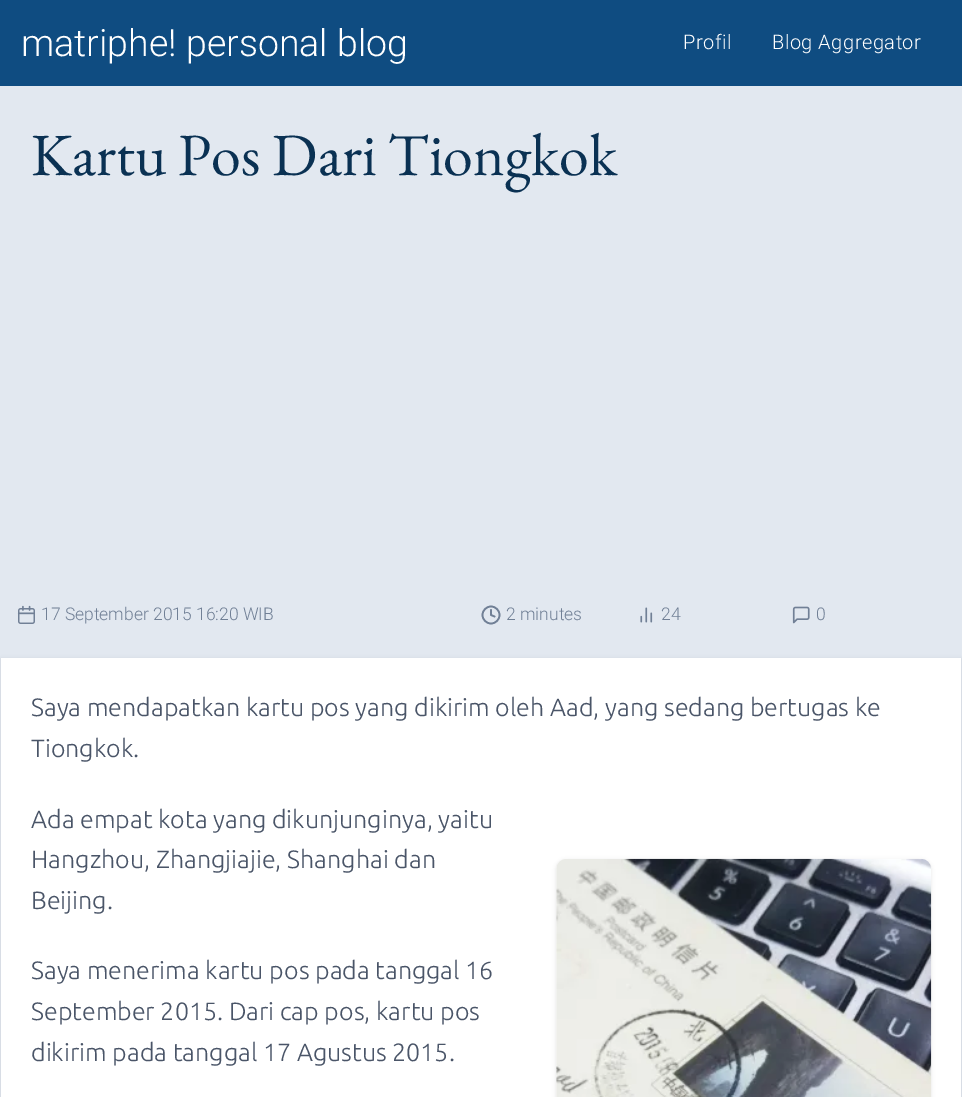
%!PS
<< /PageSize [962 1097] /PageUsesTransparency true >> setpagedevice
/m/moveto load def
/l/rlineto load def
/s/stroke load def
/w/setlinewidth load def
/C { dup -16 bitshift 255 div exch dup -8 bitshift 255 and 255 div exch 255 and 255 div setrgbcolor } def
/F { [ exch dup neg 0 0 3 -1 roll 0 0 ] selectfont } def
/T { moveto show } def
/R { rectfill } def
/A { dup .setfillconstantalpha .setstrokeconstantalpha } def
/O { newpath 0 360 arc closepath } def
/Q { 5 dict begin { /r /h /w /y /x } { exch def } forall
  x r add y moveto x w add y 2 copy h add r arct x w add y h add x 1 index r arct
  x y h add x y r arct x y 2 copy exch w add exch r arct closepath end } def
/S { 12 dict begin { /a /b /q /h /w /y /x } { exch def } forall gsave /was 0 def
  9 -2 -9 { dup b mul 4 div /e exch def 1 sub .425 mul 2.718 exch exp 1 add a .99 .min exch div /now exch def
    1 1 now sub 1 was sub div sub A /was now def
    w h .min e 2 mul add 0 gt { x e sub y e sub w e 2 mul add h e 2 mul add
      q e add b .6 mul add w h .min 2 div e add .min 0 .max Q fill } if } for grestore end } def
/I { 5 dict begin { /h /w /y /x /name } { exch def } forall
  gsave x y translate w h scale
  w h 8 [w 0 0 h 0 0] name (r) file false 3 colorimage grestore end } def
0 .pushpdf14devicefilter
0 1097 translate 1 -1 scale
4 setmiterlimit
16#E2E8F0 C
0 0 962 1097 R
16#0F4C81 C
0 0 962 86 R
/Roboto-Light 37.5 F
16#FFFFFF C
(matriphe! personal blog) 21 56 T
/Roboto-Light 20 F
683 49 m .5 0 (Profil) ashow
772 49 m .5 0 (Blog Aggregator) ashow
/EBGaramond-Regular 60 F
16#0A3153 C
(Kartu Pos Dari Tiongkok) 31 175 T
(1.rgb) 17 605 18 19 I
/Roboto-Light 17.5 F
16#718096 C
(17 September 2015 16:20 WIB) 41 620 T
1.7 w
491 615 8.5 O s
1 setlinecap
1 setlinejoin
491 610 m 0 5 l 3.5 1.5 l s
(2 minutes) 506 620 T
(2.rgb) 640 607 13 16 I
(24) 661 620 T
(3.rgb) 792 606 18 18 I
(0) 816 620 T
16#000000 C
1 659 960 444 0 2 .1 S
16#FFFFFF C
1 658 960 439 R
/Ubuntu-Light 25 F
16#4A5568 C
(Saya mendapatkan kartu pos yang dikirim oleh Aad, yang sedang bertugas ke) 31 716 T
(Tiongkok.) 31 757 T
(Ada empat kota yang dikunjunginya, yaitu) 31 828 T
(Hangzhou, Zhangjiajie, Shanghai dan) 31 868 T
(Beijing.) 31 909 T
16#000000 C
556 860 375 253 10 2 .1 S
(4.rgb) 556 858 376 239 I
16#4A5568 C
(Saya menerima kartu pos pada tanggal 16) 31 979 T
(September 2015. Dari cap pos, kartu pos) 31 1020 T
(dikirim pada tanggal 17 Agustus 2015.) 31 1061 T
.poppdf14devicefilter showpage
